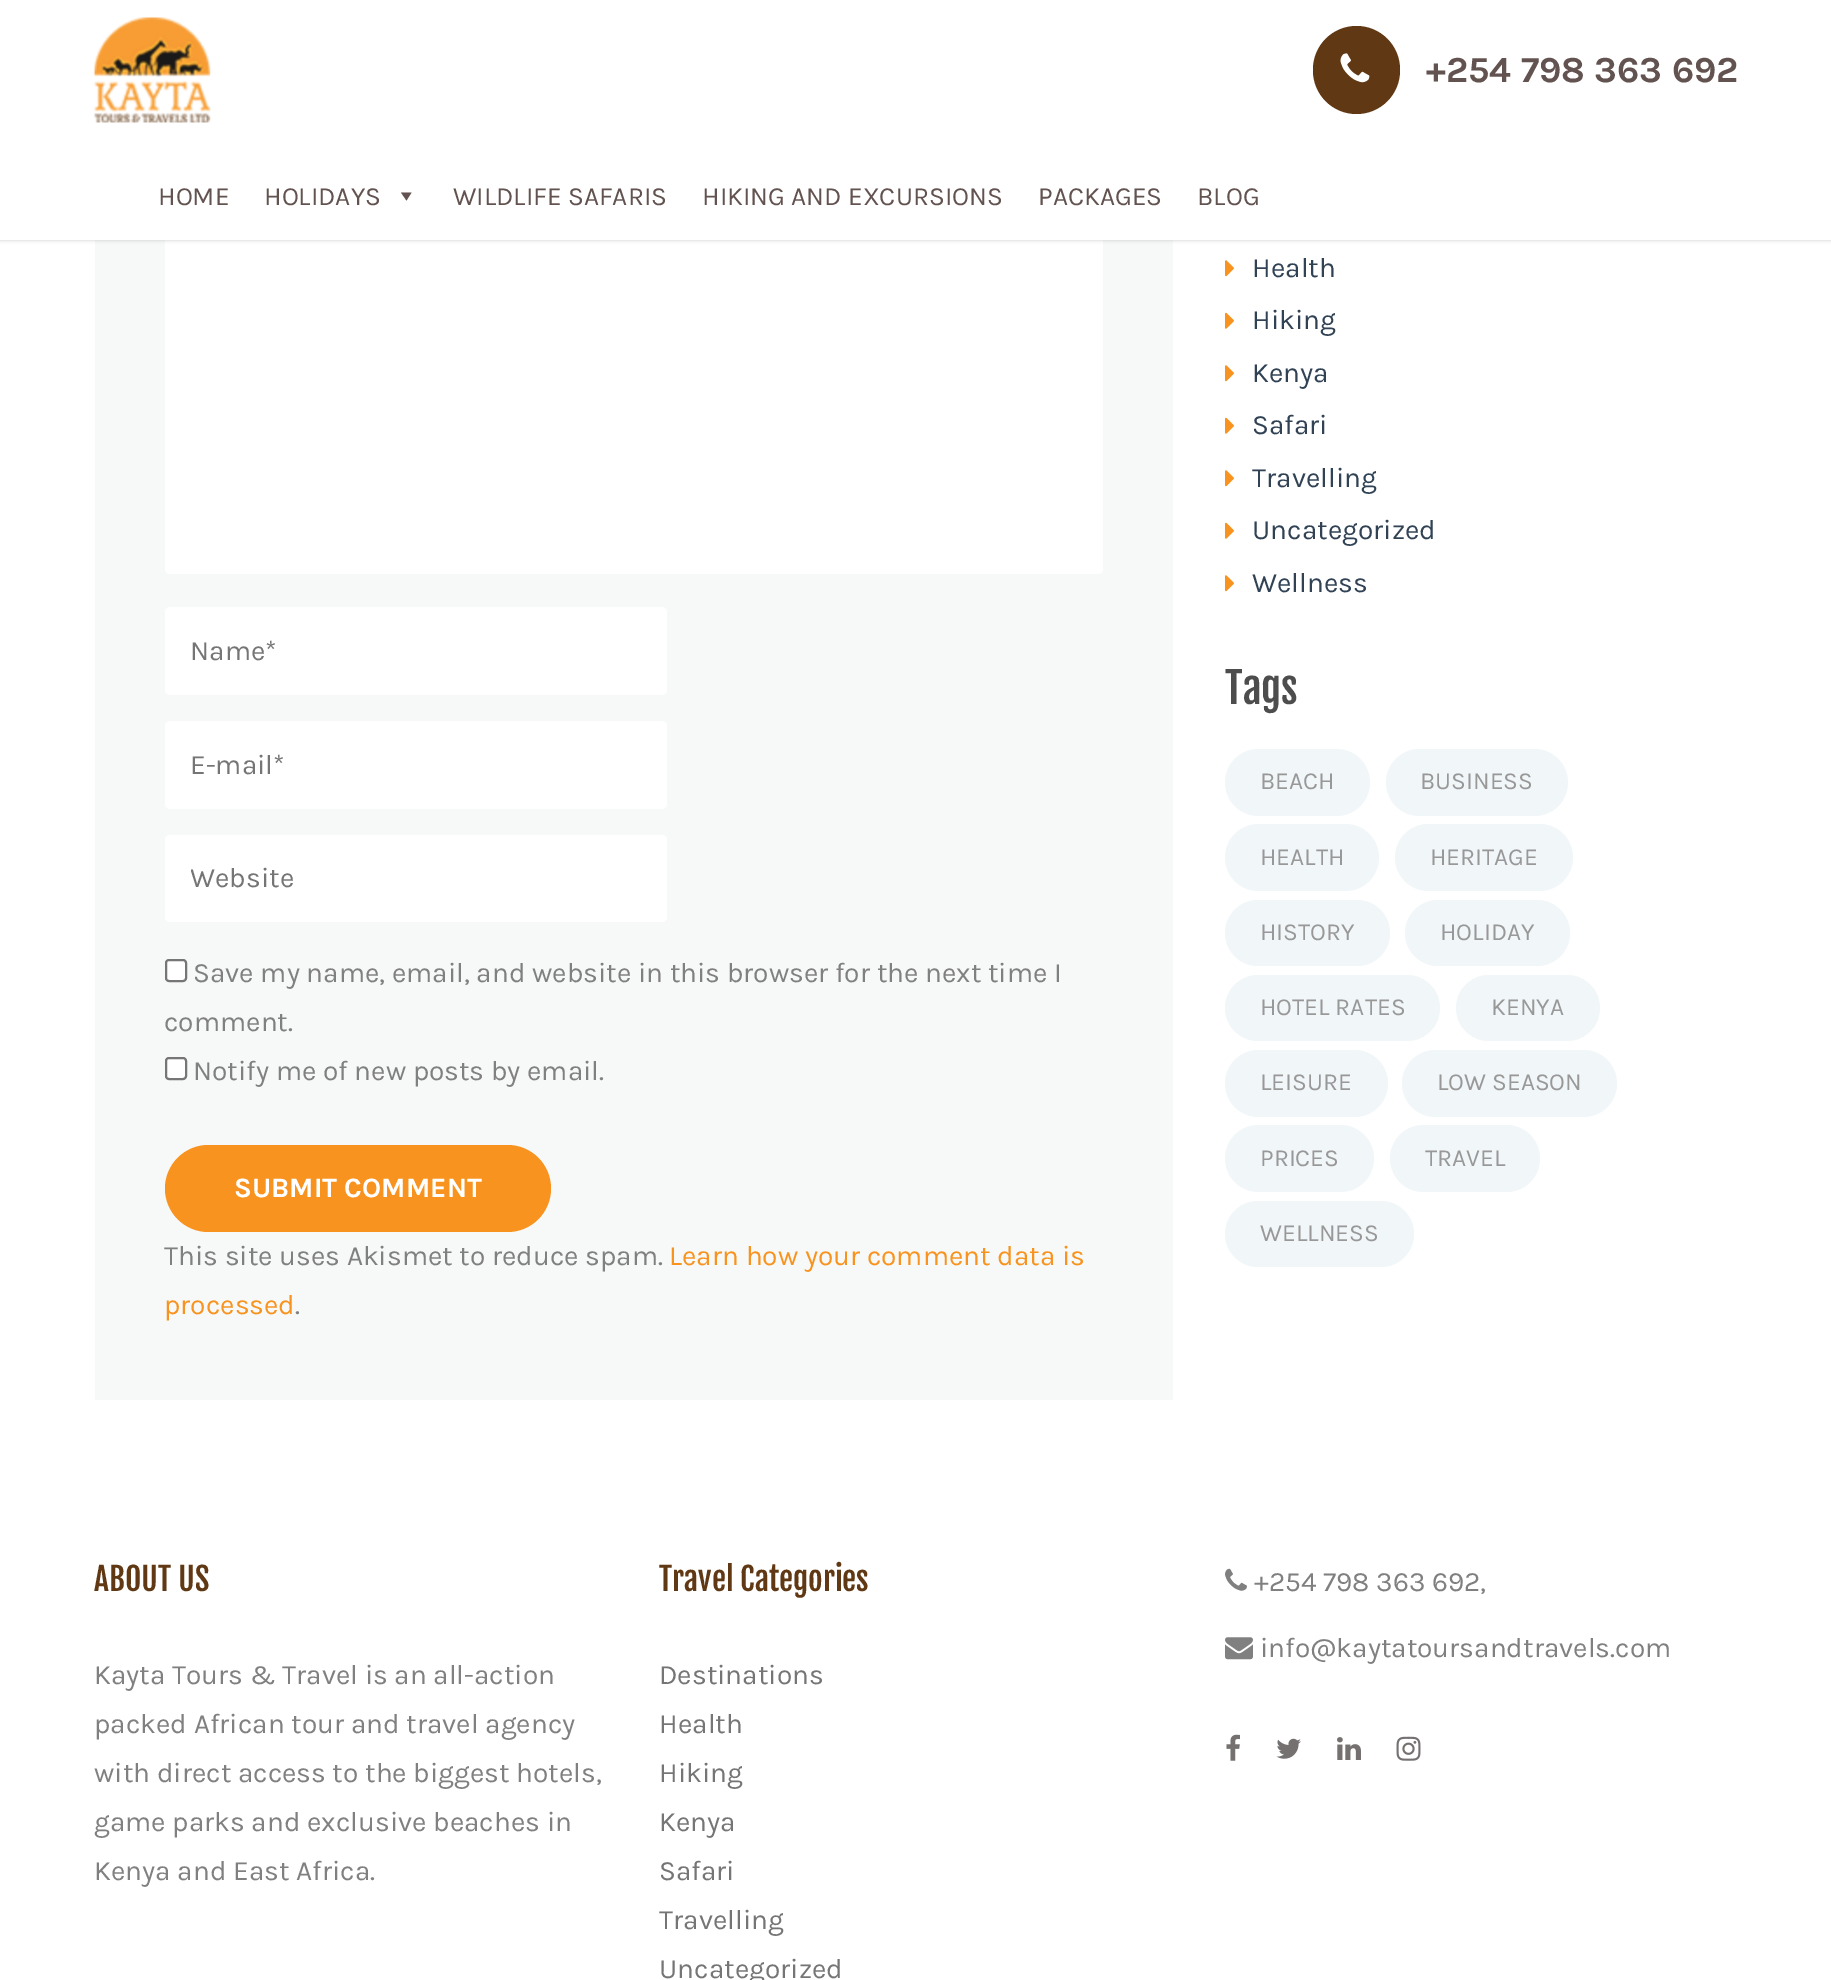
%!PS
<< /PageSize [1831 1980] /PageUsesTransparency true >> setpagedevice
/m/moveto load def
/l/rlineto load def
/z/closepath load def
/f/fill load def
/s/stroke load def
/q/gsave load def
/Q_/grestore load def
/w/setlinewidth load def
/C { dup -16 bitshift 255 div exch dup -8 bitshift 255 and 255 div exch 255 and 255 div setrgbcolor } def
/F { [ exch dup neg 0 0 3 -1 roll 0 0 ] selectfont } def
/T { moveto show } def
/R { rectfill } def
/A { dup .setfillconstantalpha .setstrokeconstantalpha } def
/Q { 5 dict begin { /r /h /w /y /x } { exch def } forall
  x r add y moveto x w add y 2 copy h add r arct x w add y h add x 1 index r arct
  x y h add x y r arct x y 2 copy exch w add exch r arct closepath end } def
/S { 12 dict begin { /a /b /q /h /w /y /x } { exch def } forall gsave /was 0 def
  9 -2 -9 { dup b mul 4 div /e exch def 1 sub .425 mul 2.718 exch exp 1 add a .99 .min exch div /now exch def
    1 1 now sub 1 was sub div sub A /was now def
    w h .min e 2 mul add 0 gt { x e sub y e sub w e 2 mul add h e 2 mul add
      q e add b .6 mul add w h .min 2 div e add .min 0 .max Q fill } if } for grestore end } def
/I { 5 dict begin { /h /w /y /x /name } { exch def } forall
  gsave x y translate w h scale
  w h 8 [w 0 0 h 0 0] name (r) file false 3 colorimage grestore end } def
0 .pushpdf14devicefilter
0 1980 translate 1 -1 scale
4 setmiterlimit
16#FFFFFF C
0 0 1831 1980 R
16#F7F9F9 C
95 240 1078 1160 R
16#FFFFFF C
165 49 938 525 5 Q f
16#000000 C
0 0 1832 240 0 2 .2 S
16#FFFFFF C
0 0 1831 240 R
(1.rgb) 93 17 118 106 I
16#603813 C
1313 26 87 88 43.5 Q f
(2.rgb) 1340 53 30 30 I
/Karla-Bold 36.75 F
16#625350 C
(+254 798 363 692) 1426 82 T
/Karla-Regular 26.25 F
(HOME) 158 205 T
(HOLIDAYS) 264 205 T
411.5 192.5 m -5 8 l -5.5 -8 l z f
(WILDLIFE SAFARIS) 453 205 T
(HIKING AND EXCURSIONS) 702 205 T
(PACKAGES) 1038 205 T
(BLOG) 1197 205 T
16#FFFFFF C
165 607 502 88 5 Q f
/Karla-Regular 28 F
16#757575 C
(Name*) 190 660 T
16#FFFFFF C
165 721 502 88 5 Q f
16#757575 C
(E-mail*) 190 774 T
16#FFFFFF C
165 835 502 87 5 Q f
q
191 861 450 33 rectclip
16#757575 C
(Website) 190 887 T
Q_
166 960 20 21 3 Q q f Q_
16#767676 C
2 w
s
16#808080 C
(Save my name, email, and website in this browser for the next time I) 193 982 T
(comment.) 164 1031 T
16#FFFFFF C
166 1058 20 21 3 Q q f Q_
16#767676 C
s
16#808080 C
(Notify me of new posts by email.) 193 1080 T
16#F7931E C
165 1145 386 87 43.5 Q f
/Karla-Bold 28 F
16#FFFFFF C
(SUBMIT COMMENT) 234 1197 T
/Karla-Regular 28 F
16#808080 C
(This site uses Akismet to reduce spam.) 164 1265 T
16#F7931E C
(Learn how your comment data is) 669 1265 T
(processed) 164 1314 T
16#808080 C
(.) 295 1314 T
(3.rgb) 1225 260 9 17 I
16#304254 C
(Health) 1252 277 T
(4.rgb) 1225 312 9 17 I
(Hiking) 1252 329 T
(3.rgb) 1225 365 9 17 I
(Kenya) 1252 382 T
(4.rgb) 1225 417 9 17 I
(Safari) 1252 434 T
(3.rgb) 1225 470 9 17 I
(Travelling) 1252 487 T
(4.rgb) 1225 522 9 17 I
(Uncategorized) 1252 539 T
(3.rgb) 1225 575 9 17 I
(Wellness) 1252 592 T
/FjallaOne-Regular 42 F
16#4D4D4D C
(Tags) 1225 704 T
16#F1F6F8 C
1225 749 145 67 33.5 Q f
/Karla-Regular 24.5 F
16#989898 C
(BEACH) 1260 789 T
16#F1F6F8 C
1386 749 182 67 33.5 Q f
16#989898 C
(BUSINESS) 1420 789 T
16#F1F6F8 C
1225 824 154 67 33.5 Q f
16#989898 C
(HEALTH) 1260 865 T
16#F1F6F8 C
1395 824 178 67 33.5 Q f
16#989898 C
(HERITAGE) 1430 865 T
16#F1F6F8 C
1225 900 165 66 33 Q f
16#989898 C
(HISTORY) 1260 940 T
16#F1F6F8 C
1405 900 165 66 33 Q f
16#989898 C
(HOLIDAY) 1440 940 T
16#F1F6F8 C
1225 975 215 66 33 Q f
16#989898 C
(HOTEL RATES) 1260 1015 T
16#F1F6F8 C
1456 975 144 66 33 Q f
16#989898 C
(KENYA) 1491 1015 T
16#F1F6F8 C
1225 1050 163 67 33.5 Q f
16#989898 C
(LEISURE) 1260 1090 T
16#F1F6F8 C
1402 1050 215 67 33.5 Q f
16#989898 C
(LOW SEASON) 1437 1090 T
16#F1F6F8 C
1225 1125 149 67 33.5 Q f
16#989898 C
(PRICES) 1260 1166 T
16#F1F6F8 C
1390 1125 150 67 33.5 Q f
16#989898 C
(TRAVEL) 1425 1166 T
16#F1F6F8 C
1225 1201 189 66 33 Q f
16#989898 C
(WELLNESS) 1260 1241 T
/FjallaOne-Regular 31.5 F
16#603813 C
(ABOUT US) 94 1591 T
/Karla-Regular 28 F
16#808080 C
(Kayta Tours & Travel is an all-action) 94 1684 T
(packed African tour and travel agency) 94 1733 T
(with direct access to the biggest hotels,) 94 1782 T
(game parks and exclusive beaches in) 94 1831 T
(Kenya and East Africa.) 94 1880 T
/FjallaOne-Regular 31.5 F
16#603813 C
(Travel Categories) 659 1591 T
/Karla-Regular 28 F
16#757575 C
(Destinations) 659 1684 T
(Health) 659 1733 T
(Hiking) 659 1782 T
(Kenya) 659 1831 T
(Safari) 659 1880 T
(Travelling) 659 1929 T
(Uncategorized) 659 1978 T
(5.rgb) 1225 1568 22 23 I
16#808080 C
(+254 798 363 692,) 1254 1591 T
(6.rgb) 1225 1637 28 23 I
(info@kaytatoursandtravels.com) 1260 1657 T
(7.rgb) 1226 1734 14 27 I
(8.rgb) 1276 1738 25 21 I
(9.rgb) 1337 1737 24 23 I
(10.rgb) 1396 1736 25 25 I
.poppdf14devicefilter showpage
